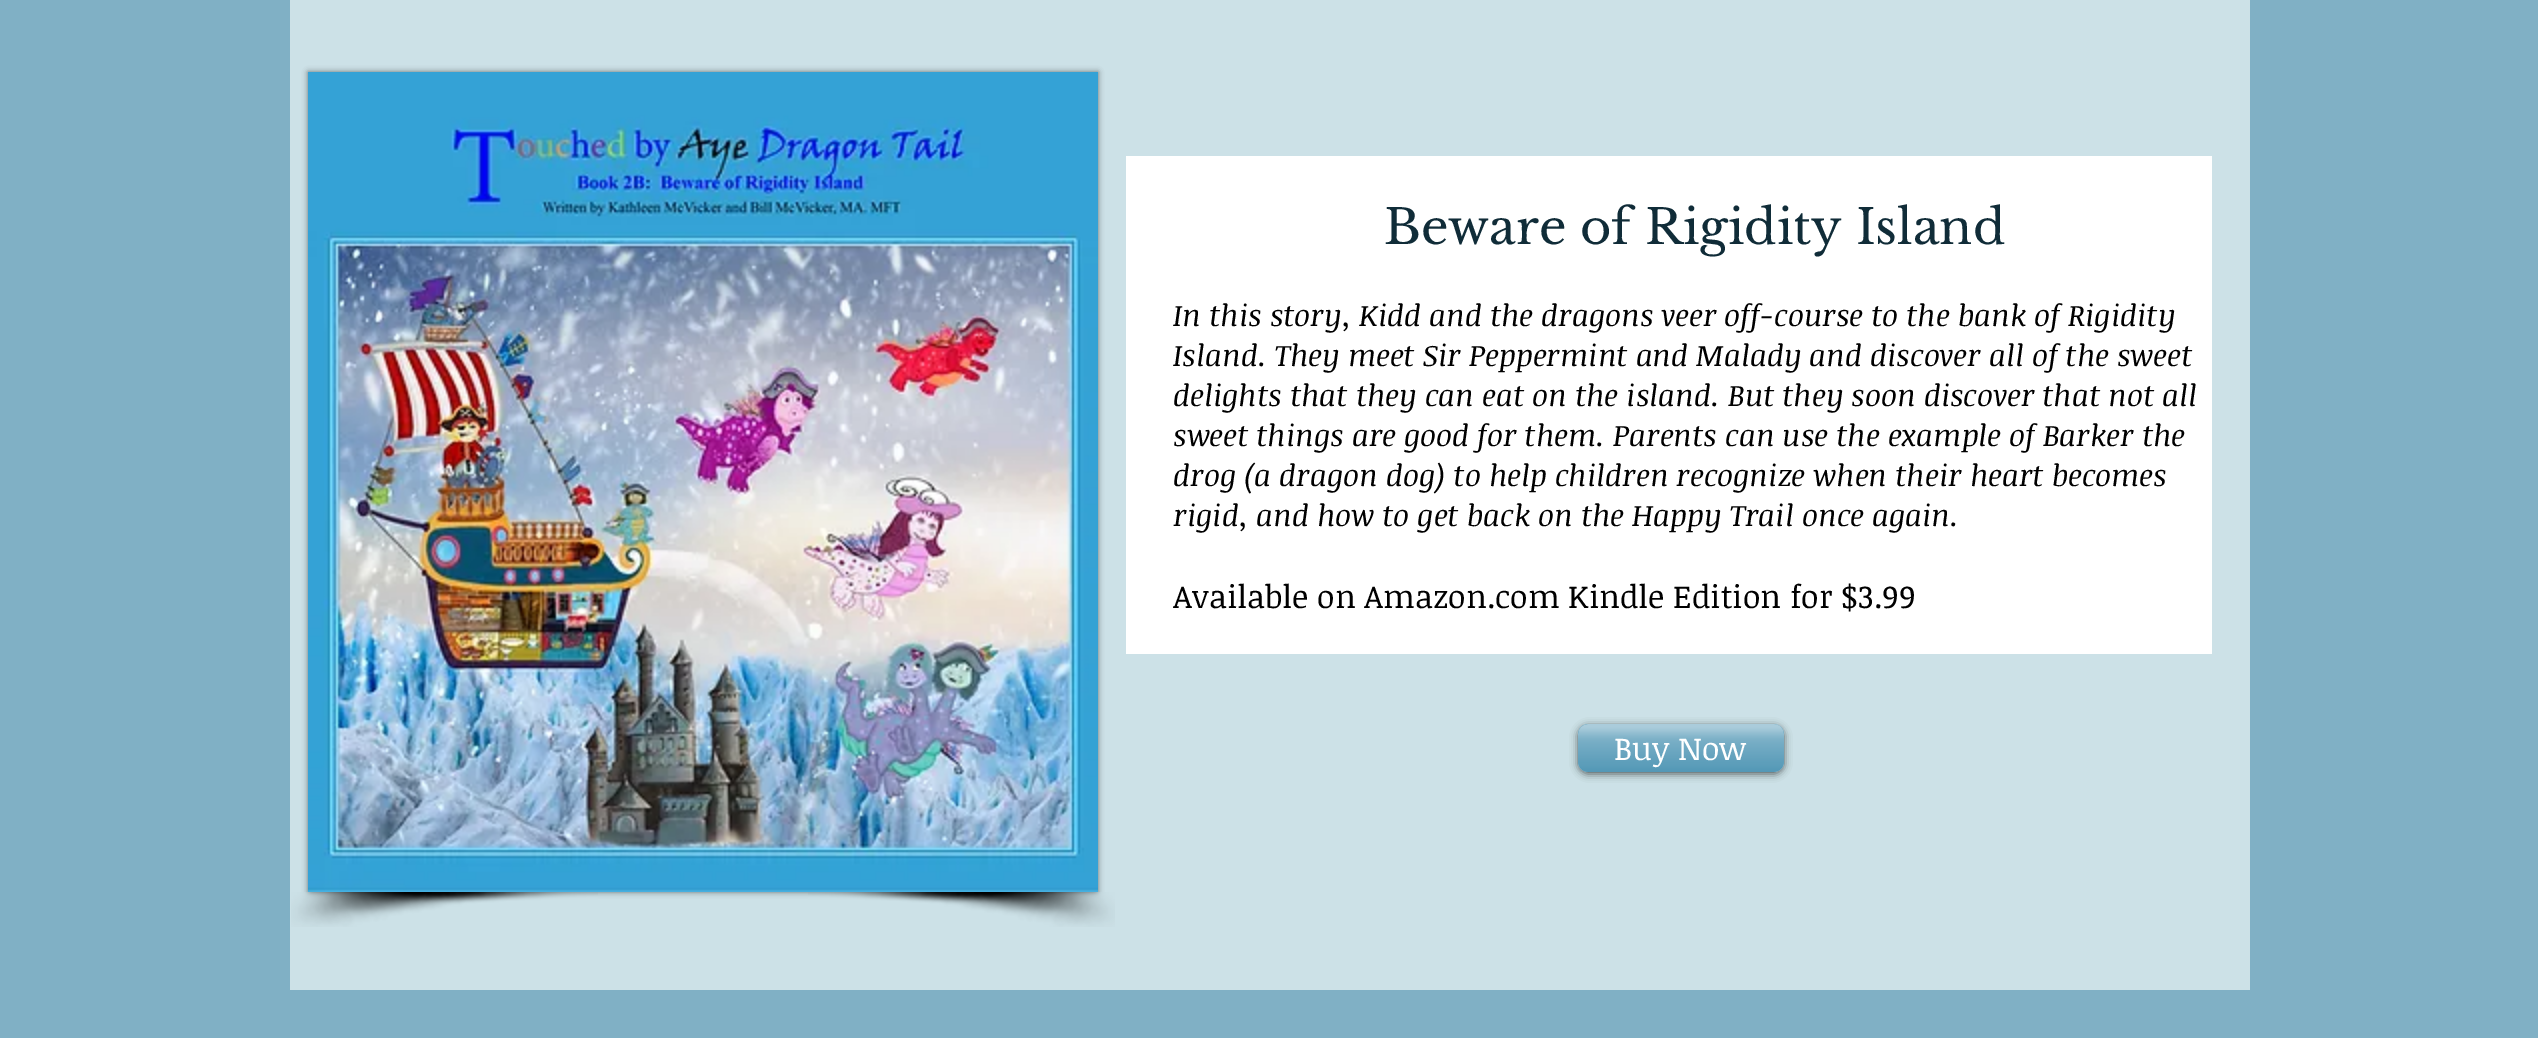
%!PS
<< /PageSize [2538 1038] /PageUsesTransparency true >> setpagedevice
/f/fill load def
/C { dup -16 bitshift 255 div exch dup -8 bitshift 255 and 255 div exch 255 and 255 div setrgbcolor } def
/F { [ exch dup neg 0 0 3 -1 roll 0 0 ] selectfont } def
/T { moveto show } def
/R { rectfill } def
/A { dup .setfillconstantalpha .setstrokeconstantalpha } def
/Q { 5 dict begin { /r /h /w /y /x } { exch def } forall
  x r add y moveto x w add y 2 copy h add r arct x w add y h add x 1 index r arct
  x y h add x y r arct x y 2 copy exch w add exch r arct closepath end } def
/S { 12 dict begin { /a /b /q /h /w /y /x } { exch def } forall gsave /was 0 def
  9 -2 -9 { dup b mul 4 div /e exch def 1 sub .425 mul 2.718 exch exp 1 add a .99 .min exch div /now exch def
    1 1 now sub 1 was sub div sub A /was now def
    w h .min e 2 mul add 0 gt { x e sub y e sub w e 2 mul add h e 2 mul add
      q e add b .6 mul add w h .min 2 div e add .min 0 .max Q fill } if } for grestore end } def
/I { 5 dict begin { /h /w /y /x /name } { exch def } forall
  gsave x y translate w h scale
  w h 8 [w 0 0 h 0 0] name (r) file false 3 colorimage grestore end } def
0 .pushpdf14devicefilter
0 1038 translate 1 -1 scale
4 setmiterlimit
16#80B0C5 C
0 0 2538 1038 R
16#CCE1E7 C
290 0 1960 990 R
16#000000 C
308 72 790 820 0 3 .5 S
(1.rgb) 308 72 790 820 I
(2.rgb) 291 892 307 35 I
(3.rgb) 808 892 307 35 I
16#FFFFFF C
1126 156 1086 498 R
/LibreBaskerville-Regular 48 F
16#102C38 C
(Beware of Rigidity Island) 1384 244 T
/NoticiaText-Italic 30 F
16#000000 C
(In this story, Kidd and the dragons veer off-course to the bank of Rigidity) 1173 326 T
(Island. They meet Sir Peppermint and Malady and discover all of the sweet) 1173 366 T
(delights that they can eat on the island. But they soon discover that not all) 1173 406 T
(sweet things are good for them. Parents can use the example of Barker the) 1173 446 T
(drog \(a dragon dog\) to help children recognize when their heart becomes) 1173 486 T
(rigid, and how to get back on the Happy Trail once again.) 1173 526 T
/NoticiaText-Regular 32 F
(Available on Amazon.com Kindle Edition for $3.99) 1173 608 T
1578 726 206 48 10 4 .6 S
16#3284A8 C
1578 724 206 48 10 Q f
(4.rgb) 1578 724 206 48 I
16#FFFFFF C
(Buy Now) 1614 760 T
.poppdf14devicefilter showpage
